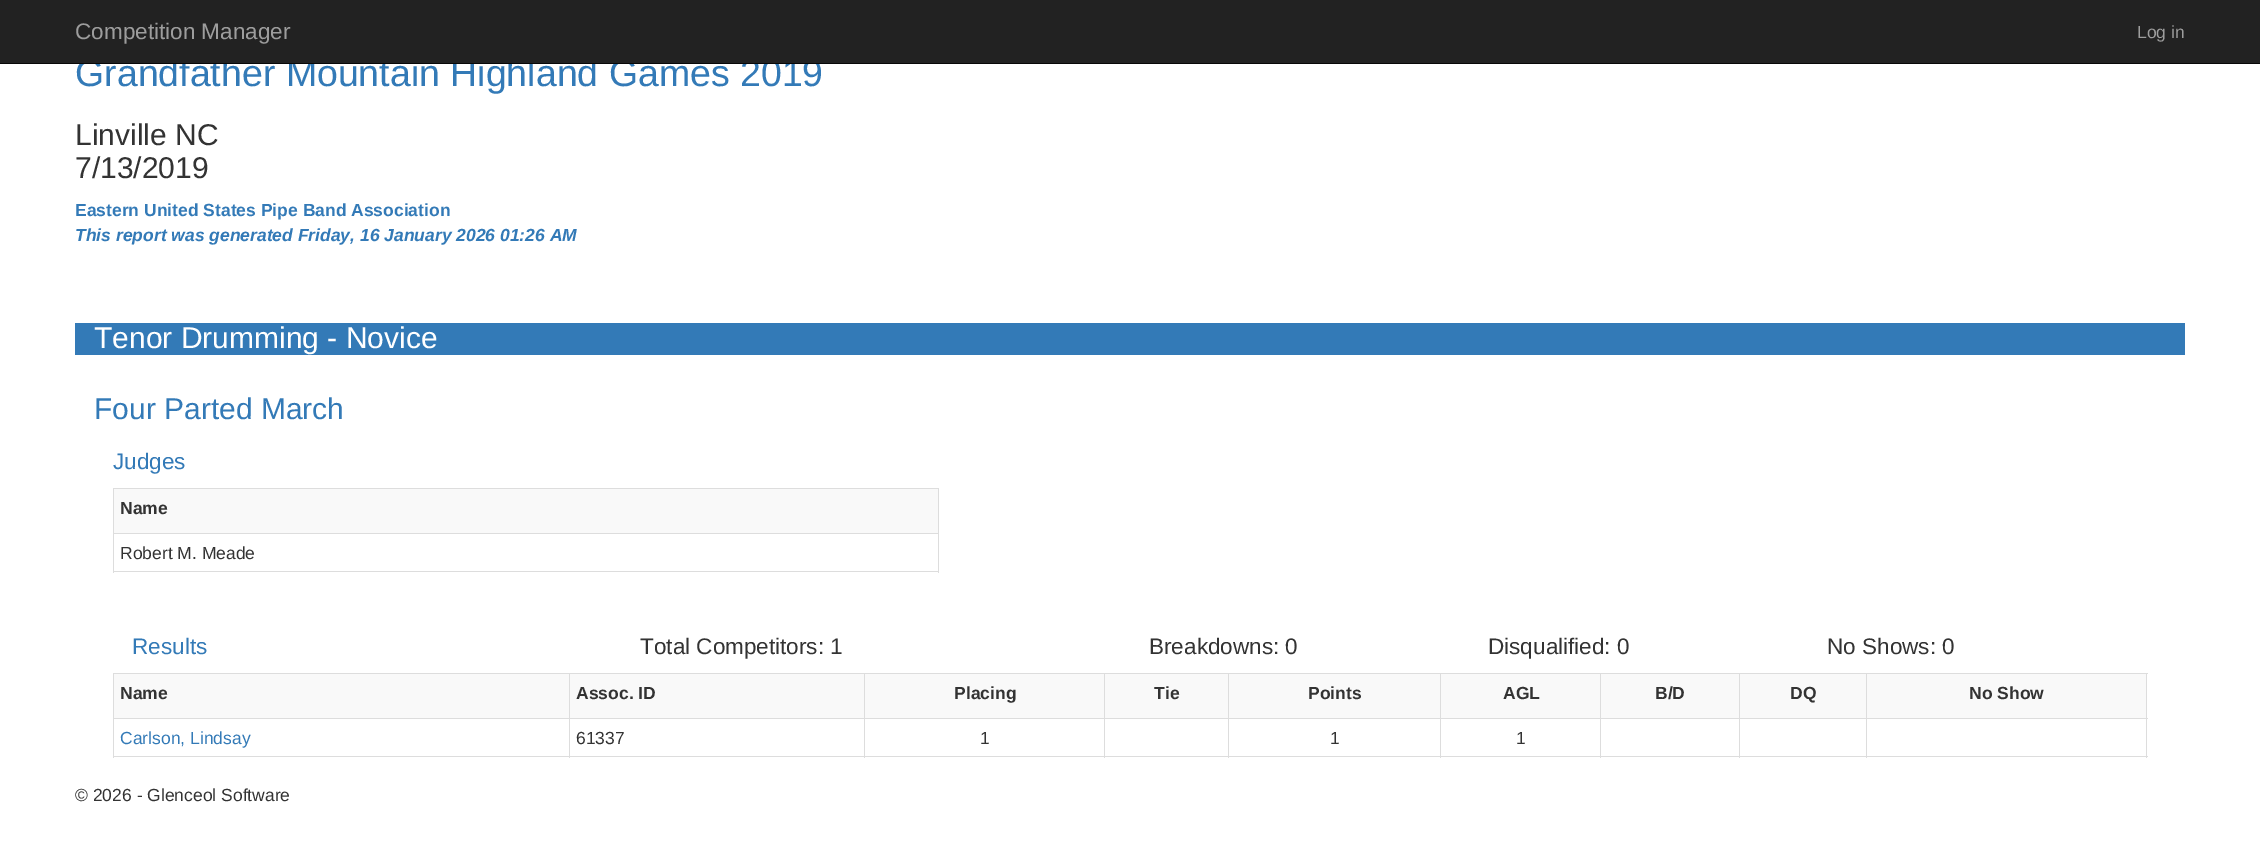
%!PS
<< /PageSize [2260 845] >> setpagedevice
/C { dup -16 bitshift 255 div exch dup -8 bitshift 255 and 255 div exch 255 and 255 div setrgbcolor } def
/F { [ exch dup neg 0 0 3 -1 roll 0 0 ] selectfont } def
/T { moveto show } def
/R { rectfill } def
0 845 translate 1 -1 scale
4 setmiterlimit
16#FFFFFF C
0 0 2260 845 R
/LiberationSans-Regular 37.5 F
16#337AB7 C
(Grandfather Mountain Highland Games 2019) 75 86 T
16#222222 C
0 0 2260 63 R
16#080808 C
0 63 2260 1 R
/LiberationSans-Regular 22.5 F
16#9D9D9D C
(Competition Manager) 75 39 T
/LiberationSans-Regular 17.5 F
(Log in) 2137 38 T
/LiberationSans-Regular 30 F
16#333333 C
(Linville NC) 75 145 T
(7/13/2019) 75 178 T
/LiberationSans-Bold 17.5 F
16#337AB7 C
(Eastern United States Pipe Band Association) 75 216 T
/LiberationSans-BoldItalic 17.5 F
(This report was generated Friday, 16 January 2026 01:26 AM) 75 241 T
75 323 2110 32 R
/LiberationSans-Regular 30 F
16#FFFFFF C
(Tenor Drumming - Novice) 94 348 T
16#337AB7 C
(Four Parted March) 94 419 T
/LiberationSans-Regular 22.5 F
(Judges) 113 469 T
16#DDDDDD C
113 488 826 1 R
938 488 1 85 R
113 571 826 1 R
113 488 1 85 R
16#F9F9F9 C
114 489 824 44 R
/LiberationSans-Bold 17.5 F
16#333333 C
(Name) 120 514 T
16#DDDDDD C
113 533 826 1 R
/LiberationSans-Regular 17.5 F
16#333333 C
(Robert M. Meade) 120 559 T
/LiberationSans-Regular 22.5 F
16#337AB7 C
(Results) 132 654 T
16#333333 C
(Total Competitors: 1) 640 654 T
(Breakdowns: 0) 1149 654 T
(Disqualified: 0) 1488 654 T
(No Shows: 0) 1827 654 T
16#DDDDDD C
113 673 2035 1 R
2146 673 1 85 R
113 756 2035 1 R
113 673 1 85 R
16#F9F9F9 C
114 674 2032 44 R
/LiberationSans-Bold 17.5 F
16#333333 C
(Name) 120 699 T
16#DDDDDD C
1866 718 282 1 R
1866 718 1 40 R
1739 718 129 1 R
1739 718 1 40 R
1600 718 140 1 R
1600 718 1 40 R
1440 718 161 1 R
1440 718 1 40 R
1228 718 213 1 R
1228 718 1 40 R
1104 718 125 1 R
1104 718 1 40 R
864 718 241 1 R
864 718 1 40 R
569 718 296 1 R
569 718 1 40 R
113 718 457 1 R
569 673 1 46 R
16#333333 C
(Assoc. ID) 576 699 T
16#DDDDDD C
864 673 1 46 R
16#333333 C
(Placing) 954 699 T
16#DDDDDD C
1104 673 1 46 R
16#333333 C
(Tie) 1154 699 T
16#DDDDDD C
1228 673 1 46 R
16#333333 C
(Points) 1308 699 T
16#DDDDDD C
1440 673 1 46 R
16#333333 C
(AGL) 1503 699 T
16#DDDDDD C
1600 673 1 46 R
16#333333 C
(B/D) 1655 699 T
16#DDDDDD C
1739 673 1 46 R
16#333333 C
(DQ) 1790 699 T
16#DDDDDD C
1866 673 1 46 R
16#333333 C
(No Show) 1969 699 T
/LiberationSans-Regular 17.5 F
16#337AB7 C
(Carlson, Lindsay) 120 744 T
16#333333 C
(61337) 576 744 T
(1) 980 744 T
(1) 1330 744 T
(1) 1516 744 T
(© 2026 - Glenceol Software) 75 801 T
showpage
